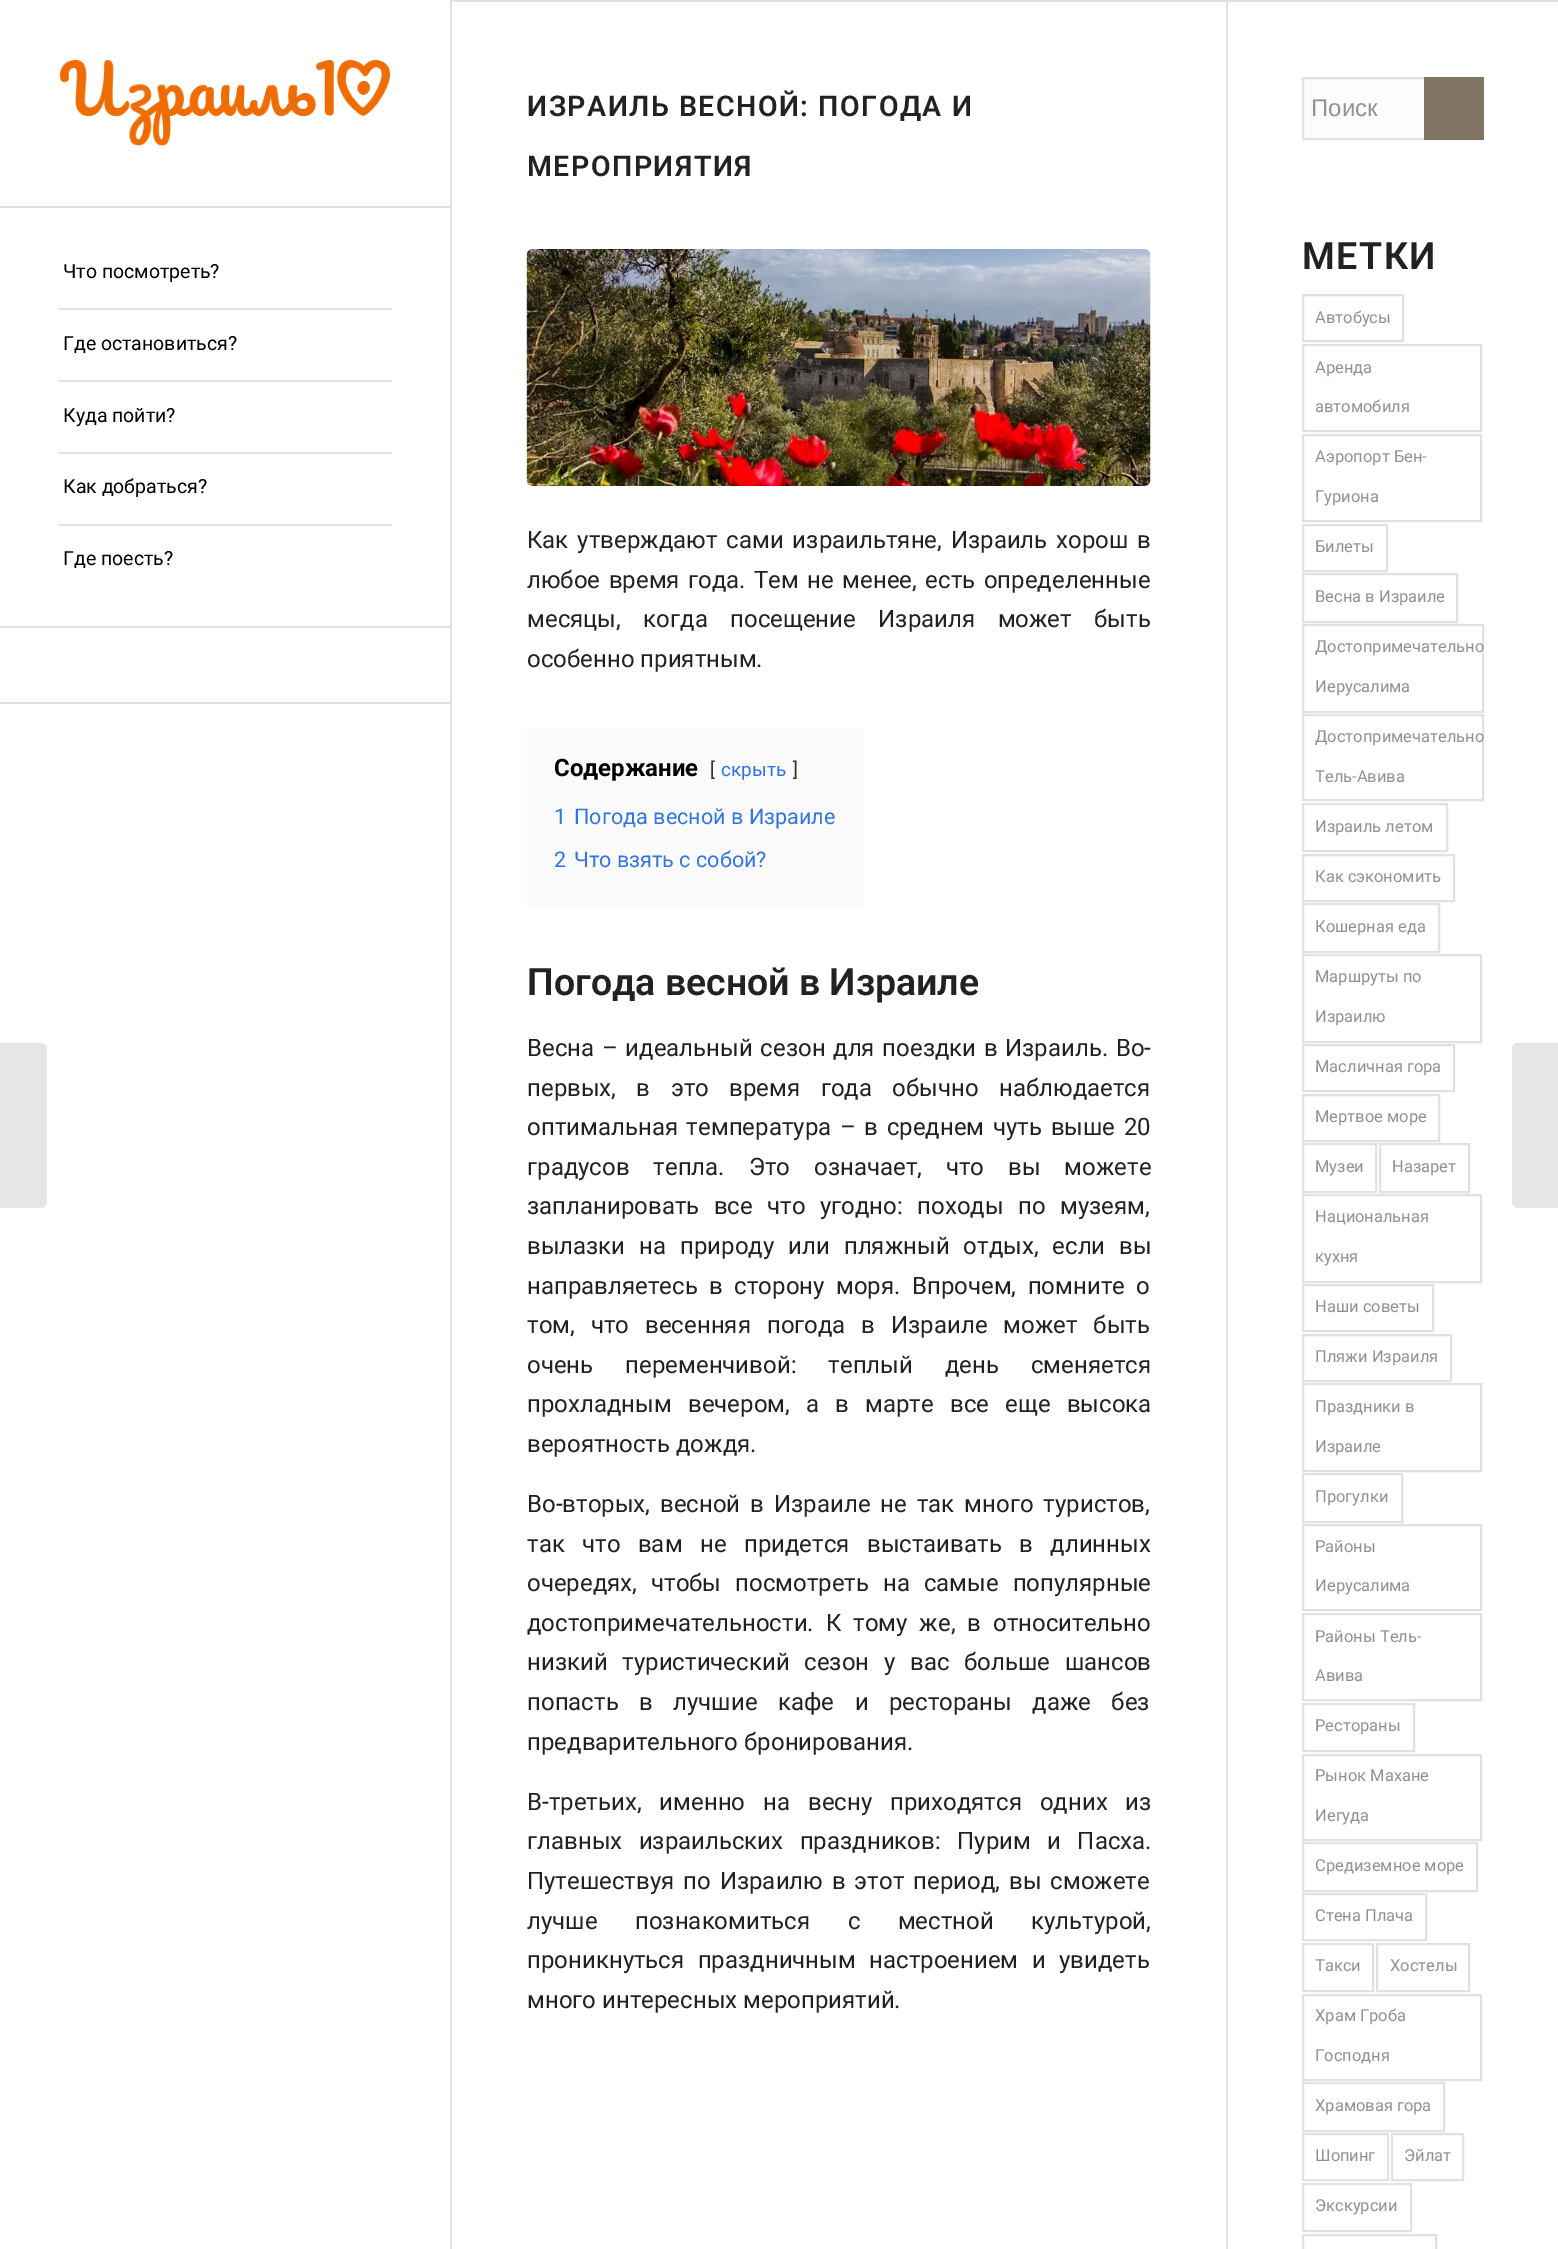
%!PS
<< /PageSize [1558 2249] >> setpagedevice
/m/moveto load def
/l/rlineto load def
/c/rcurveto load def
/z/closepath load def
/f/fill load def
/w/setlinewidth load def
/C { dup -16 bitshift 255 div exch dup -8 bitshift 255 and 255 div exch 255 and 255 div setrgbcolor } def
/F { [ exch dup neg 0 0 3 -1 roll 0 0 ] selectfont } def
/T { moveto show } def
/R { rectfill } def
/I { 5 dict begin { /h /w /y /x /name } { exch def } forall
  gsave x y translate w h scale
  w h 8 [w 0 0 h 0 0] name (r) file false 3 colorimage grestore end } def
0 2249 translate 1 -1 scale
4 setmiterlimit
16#FFFFFF C
0 0 1558 2249 R
16#E1E1E1 C
0 702 450 2 R
0 206 450 2 R
(1.rgb) 60 60 330 86 I
59 308 333 2 R
/Roboto-Regular 19.5 F
16#000000 C
(Что посмотреть?) 63 278 T
16#E1E1E1 C
59 380 333 2 R
16#000000 C
(Где остановиться?) 63 350 T
16#E1E1E1 C
59 452 333 2 R
16#000000 C
(Куда пойти?) 63 422 T
16#E1E1E1 C
59 524 333 2 R
16#000000 C
(Как добраться?) 63 493 T
(Где поесть?) 63 565 T
16#E1E1E1 C
0 626 450 2 R
450 0 2 2249 R
452 0 1106 2 R
1226 2 2 2247 R
/Roboto-SemiBold 28.5 F
16#222222 C
527 116 m 1.5 0 (ИЗРАИЛЬ ВЕСНОЙ: ПОГОДА И) ashow
527 176 m 1.5 0 (МЕРОПРИЯТИЯ) ashow
(2.rgb) 526 249 625 237 I
/Roboto-Regular 24 F
527 548 m 3 0 32 (Как утверждают сами израильтяне, Израиль хорош в) widthshow
527 588 m 2.5 0 32 (любое время года. Тем не менее, есть определенные) widthshow
527 627 m 16.5 0 32 (месяцы, когда посещение Израиля может быть) widthshow
(особенно приятным.) 527 667 T
16#FAFAFA C
527 728 336 180 R
/Roboto-Bold 24 F
16#000000 C
(Содержание) 554 776 T
/Roboto-Regular 19 F
16#333333 C
([) 710 776 T
16#3175E4 C
(скрыть) 721 776 T
16#333333 C
(]) 793 776 T
/Roboto-Regular 21.6 F
16#3175E4 C
(1) 554 824 T
(Погода весной в Израиле) 574 824 T
(2) 554 867 T
(Что взять с собой?) 574 867 T
/Roboto-SemiBold 37.5 F
16#222222 C
(Погода весной в Израиле) 527 995 T
/Roboto-Regular 24 F
527 1056 m 1.75 0 32 (Весна – идеальный сезон для поездки в Израиль. Во-) widthshow
527 1096 m 14.5 0 32 (первых, в это время года обычно наблюдается) widthshow
527 1135 m 2.75 0 32 (оптимальная температура – в среднем чуть выше 20) widthshow
527 1175 m 18 0 32 (градусов тепла. Это означает, что вы можете) widthshow
527 1214 m 8.5 0 32 (запланировать все что угодно: походы по музеям,) widthshow
527 1254 m 8 0 32 (вылазки на природу или пляжный отдых, если вы) widthshow
527 1294 m 5.5 0 32 (направляетесь в сторону моря. Впрочем, помните о) widthshow
527 1333 m 10 0 32 (том, что весенняя погода в Израиле может быть) widthshow
527 1373 m 26 0 32 (очень переменчивой: теплый день сменяется) widthshow
527 1412 m 10.25 0 32 (прохладным вечером, а в марте все еще высока) widthshow
(вероятность дождя.) 527 1452 T
527 1512 m 4 0 32 (Во-вторых, весной в Израиле не так много туристов,) widthshow
527 1552 m 11.5 0 32 (так что вам не придется выстаивать в длинных) widthshow
527 1591 m 8 0 32 (очередях, чтобы посмотреть на самые популярные) widthshow
527 1631 m 6 0 32 (достопримечательности. К тому же, в относительно) widthshow
527 1670 m 8.75 0 32 (низкий туристический сезон у вас больше шансов) widthshow
527 1710 m 14.5 0 32 (попасть в лучшие кафе и рестораны даже без) widthshow
(предварительного бронирования.) 527 1750 T
527 1810 m 12 0 32 (В-третьих, именно на весну приходятся одних из) widthshow
527 1849 m 10.5 0 32 (главных израильских праздников: Пурим и Пасха.) widthshow
527 1889 m 3 0 32 (Путешествуя по Израилю в этот период, вы сможете) widthshow
527 1929 m 31.5 0 32 (лучше познакомиться с местной культурой,) widthshow
527 1968 m 7.5 0 32 (проникнуться праздничным настроением и увидеть) widthshow
(много интересных мероприятий.) 527 2008 T
16#FCFCFC C
1304 79 120 59 R
16#E1E1E1 C
2 w
1303 78 180 61 rectstroke
/LiberationSans-Regular 24 F
16#919191 C
(Поиск) 1311 116 T
16#817563 C
1424 77 60 63 R
/Roboto-SemiBold 37.5 F
16#222222 C
1302 269 m 1.5 0 (МЕТКИ) ashow
16#E1E1E1 C
1303 295 100 46 rectstroke
/Roboto-Regular 16.5 F
16#919191 C
(Автобусы) 1315 323 T
16#E1E1E1 C
1303 345 178 86 rectstroke
16#919191 C
(Аренда) 1315 373 T
(автомобиля) 1315 412 T
16#E1E1E1 C
1303 435 178 86 rectstroke
16#919191 C
(Аэропорт Бен-) 1315 462 T
(Гуриона) 1315 502 T
16#E1E1E1 C
1303 525 84 46 rectstroke
16#919191 C
(Билеты) 1315 552 T
16#E1E1E1 C
1303 574 154 48 rectstroke
16#919191 C
(Весна в Израиле) 1315 602 T
16#E1E1E1 C
1303 625 180 87 rectstroke
16#919191 C
(Достопримечательно) 1315 652 T
(Иерусалима) 1315 692 T
16#E1E1E1 C
1303 715 180 85 rectstroke
16#919191 C
(Достопримечательно) 1315 742 T
(Тель-Авива) 1315 782 T
16#E1E1E1 C
1303 804 144 47 rectstroke
16#919191 C
(Израиль летом) 1315 832 T
16#E1E1E1 C
1303 855 151 46 rectstroke
16#919191 C
(Как сэкономить) 1315 882 T
16#E1E1E1 C
1303 904 136 48 rectstroke
16#919191 C
(Кошерная еда) 1315 932 T
16#E1E1E1 C
1303 955 178 87 rectstroke
16#919191 C
(Маршруты по) 1315 982 T
(Израилю) 1315 1022 T
16#E1E1E1 C
1303 1045 151 46 rectstroke
16#919191 C
(Масличная гора) 1315 1072 T
16#E1E1E1 C
1303 1095 136 46 rectstroke
16#919191 C
(Мертвое море) 1315 1122 T
16#E1E1E1 C
1303 1144 73 48 rectstroke
16#919191 C
(Музеи) 1315 1172 T
16#E1E1E1 C
1380 1144 89 48 rectstroke
16#919191 C
(Назарет) 1392 1172 T
16#E1E1E1 C
1303 1195 178 87 rectstroke
16#919191 C
(Национальная) 1315 1222 T
(кухня) 1315 1262 T
16#E1E1E1 C
1303 1285 130 46 rectstroke
16#919191 C
(Наши советы) 1315 1312 T
16#E1E1E1 C
1303 1335 148 46 rectstroke
16#919191 C
(Пляжи Израиля) 1315 1362 T
16#E1E1E1 C
1303 1384 178 87 rectstroke
16#919191 C
(Праздники в) 1315 1412 T
(Израиле) 1315 1452 T
16#E1E1E1 C
1303 1474 99 48 rectstroke
16#919191 C
(Прогулки) 1315 1502 T
16#E1E1E1 C
1303 1525 178 85 rectstroke
16#919191 C
(Районы) 1315 1552 T
(Иерусалима) 1315 1591 T
16#E1E1E1 C
1303 1614 178 86 rectstroke
16#919191 C
(Районы Тель-) 1315 1642 T
(Авива) 1315 1681 T
16#E1E1E1 C
1303 1704 111 47 rectstroke
16#919191 C
(Рестораны) 1315 1731 T
16#E1E1E1 C
1303 1755 178 85 rectstroke
16#919191 C
(Рынок Махане) 1315 1781 T
(Иегуда) 1315 1821 T
16#E1E1E1 C
1303 1843 174 48 rectstroke
16#919191 C
(Средиземное море) 1315 1871 T
16#E1E1E1 C
1303 1894 123 46 rectstroke
16#919191 C
(Стена Плача) 1315 1921 T
16#E1E1E1 C
1303 1944 70 47 rectstroke
16#919191 C
(Такси) 1315 1971 T
16#E1E1E1 C
1377 1944 92 47 rectstroke
16#919191 C
(Хостелы) 1390 1971 T
16#E1E1E1 C
1303 1995 178 85 rectstroke
16#919191 C
(Храм Гроба) 1315 2021 T
(Господня) 1315 2061 T
16#E1E1E1 C
1303 2083 141 48 rectstroke
16#919191 C
(Храмовая гора) 1315 2111 T
16#E1E1E1 C
1303 2134 85 46 rectstroke
16#919191 C
(Шопинг) 1315 2161 T
16#E1E1E1 C
1392 2134 71 46 rectstroke
16#919191 C
(Эйлат) 1404 2161 T
16#E1E1E1 C
1303 2184 108 47 rectstroke
16#919191 C
(Экскурсии) 1315 2211 T
16#E1E1E1 C
1303 2235 133 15 rectstroke
16#E6E6E6 C
0 1043 m 41 0 l 3.5 0 6 2.5 6 6 c 0 153 l 0 3.5 -2.5 6 -6 6 c -41 0 l z f
1518 1043 m 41 0 l 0 165 l -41 0 l -3.5 0 -6 -2.5 -6 -6 c 0 -153 l 0 -3.5 2.5 -6 6 -6 c z f
showpage
